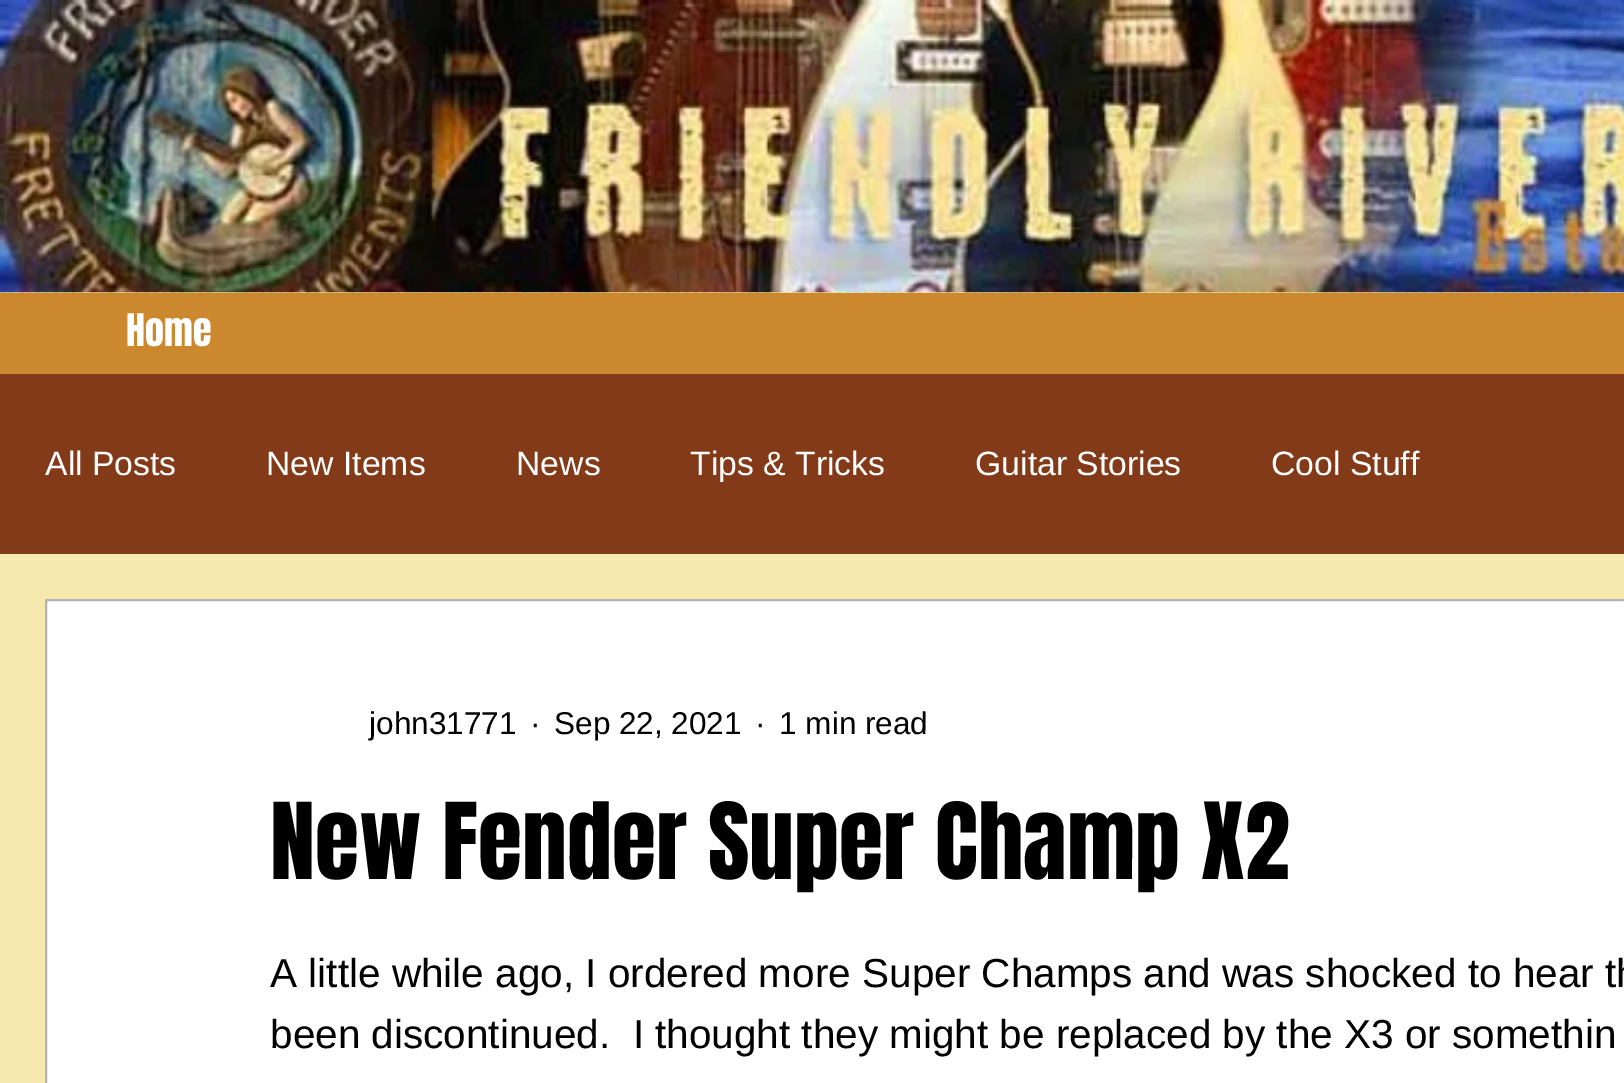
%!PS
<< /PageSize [1624 1083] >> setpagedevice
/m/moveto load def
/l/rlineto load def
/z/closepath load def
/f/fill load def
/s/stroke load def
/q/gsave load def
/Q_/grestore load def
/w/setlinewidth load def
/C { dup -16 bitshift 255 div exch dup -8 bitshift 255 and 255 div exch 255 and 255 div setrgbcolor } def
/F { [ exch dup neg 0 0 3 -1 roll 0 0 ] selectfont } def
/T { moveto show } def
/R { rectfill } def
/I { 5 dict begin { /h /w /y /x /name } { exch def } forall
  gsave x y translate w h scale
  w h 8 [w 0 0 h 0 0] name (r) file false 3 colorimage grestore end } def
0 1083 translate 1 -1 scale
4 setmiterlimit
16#FFEA92 C
0 0 1624 1083 R
(1.rgb) 0 292 1624 1 I
(2.rgb) 0 0 1624 293 I
16#CC882F C
0 293 1624 81 R
/Anton-Regular 38 F
16#FFFFFF C
(Home) 126 346 T
16#F5E9AD C
0 554 1624 529 R
16#833A18 C
0 374 1624 180 R
/LiberationSans-Regular 33.75 F
16#FFFFFF C
(All Posts) 45 475 T
(New Items) 266 475 T
(News) 516 475 T
(Tips & Tricks) 690 475 T
(Guitar Stories) 975 475 T
(Cool Stuff) 1271 475 T
46 600 m 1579 0 l 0 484 l -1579 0 l z q f Q_
16#B3B3B3 C
2 w
s
/LiberationSans-Regular 31.5 F
16#000000 C
(john31771) 369 734 T
(·) 530 734 T
(Sep 22, 2021) 554 734 T
(·) 755 734 T
(1 min read) 779 734 T
/Anton-Regular 90 F
(New Fender Super Champ X2) 270 879 T
/LiberationSans-Regular 40.5 F
(A little while ago, I ordered more Super Champs and was shocked to hear th) 270 987 T
(been discontinued.  I thought they might be replaced by the X3 or somethin) 270 1048 T
showpage
